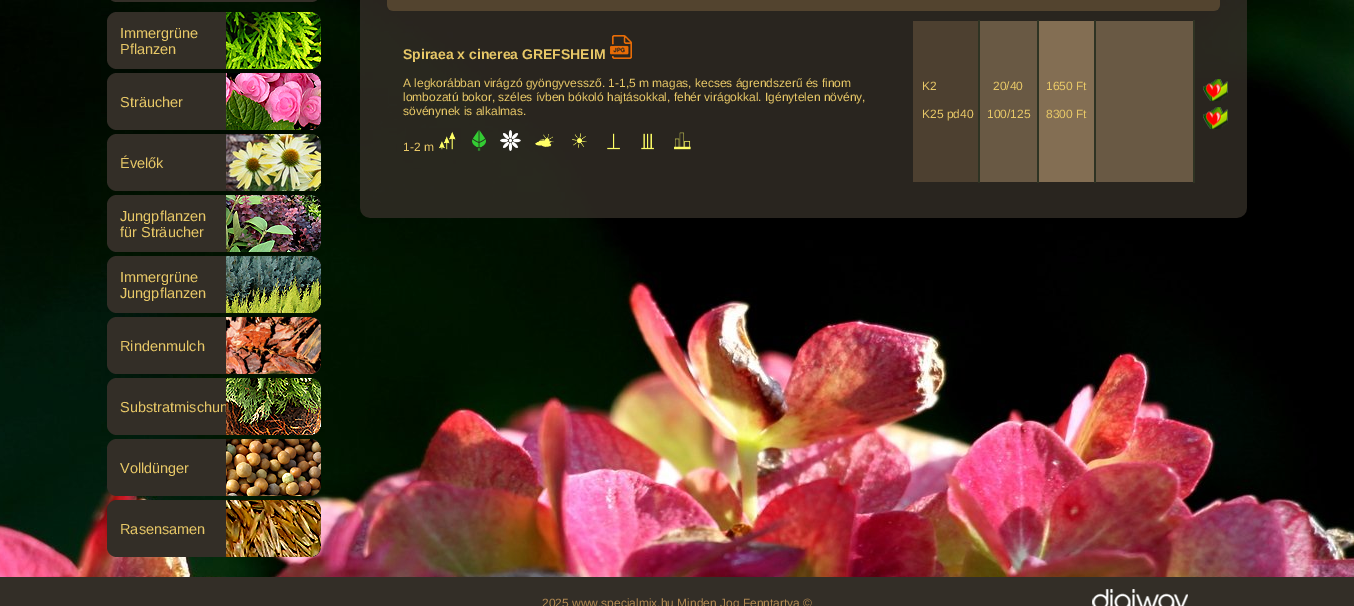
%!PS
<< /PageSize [1354 606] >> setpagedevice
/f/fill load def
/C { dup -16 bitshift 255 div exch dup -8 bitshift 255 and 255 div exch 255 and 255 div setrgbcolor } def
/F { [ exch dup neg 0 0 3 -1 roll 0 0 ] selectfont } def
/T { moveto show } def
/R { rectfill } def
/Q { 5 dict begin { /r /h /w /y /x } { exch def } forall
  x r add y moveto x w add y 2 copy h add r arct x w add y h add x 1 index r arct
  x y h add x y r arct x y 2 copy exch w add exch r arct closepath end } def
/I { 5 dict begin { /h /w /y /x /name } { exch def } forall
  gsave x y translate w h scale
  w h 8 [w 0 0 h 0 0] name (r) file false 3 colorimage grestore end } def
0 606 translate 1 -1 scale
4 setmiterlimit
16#FFFFFF C
0 0 1354 606 R
(1.rgb) 0 0 1354 577 I
16#332E27 C
107 -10 214 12 10 Q f
107 12 214 57 10 Q f
/LiberationSans-Regular 14.5 F
16#E8C867 C
(Immergrüne) 120 38 T
(Pflanzen) 120 54 T
(2.rgb) 226 12 95 57 I
16#332E27 C
107 73 214 57 10 Q f
16#E8C867 C
(Sträucher) 120 107 T
(3.rgb) 226 73 95 57 I
16#332E27 C
107 134 214 57 10 Q f
16#E8C867 C
(Évelők) 120 168 T
(4.rgb) 226 134 95 57 I
16#332E27 C
107 195 214 57 10 Q f
16#E8C867 C
(Jungpflanzen) 120 221 T
(für Sträucher) 120 237 T
(5.rgb) 226 195 95 57 I
16#332E27 C
107 256 214 57 10 Q f
16#E8C867 C
(Immergrüne) 120 282 T
(Jungpflanzen) 120 298 T
(6.rgb) 226 256 95 57 I
16#332E27 C
107 317 214 57 10 Q f
16#E8C867 C
(Rindenmulch) 120 351 T
(7.rgb) 226 317 95 57 I
16#332E27 C
107 378 214 57 10 Q f
16#E8C867 C
(Substratmischun) 120 412 T
(8.rgb) 226 378 95 57 I
16#332E27 C
107 439 214 57 10 Q f
16#E8C867 C
(Volldünger) 120 473 T
(9.rgb) 226 439 95 57 I
16#332E27 C
107 500 214 57 10 Q f
16#E8C867 C
(Rasensamen) 120 534 T
(10.rgb) 226 500 95 57 I
(11.rgb) 360 0 887 218 I
(12.rgb) 387 0 833 11 I
/LiberationSans-Bold 14 F
(Spiraea x cinerea GREFSHEIM) 403 59 T
(13.rgb) 610 35 22 24 I
/LiberationSans-Regular 12 F
(A legkorábban virágzó gyöngyvessző. 1-1,5 m magas, kecses ágrendszerű és finom) 403 87 T
(lombozatú bokor, széles ívben bókoló hajtásokkal, fehér virágokkal. Igénytelen növény,) 403 101 T
(sövénynek is alkalmas.) 403 115 T
(1-2 m) 403 151 T
(14.rgb) 439 131 17 19 I
(15.rgb) 472 130 14 21 I
(16.rgb) 500 130 21 21 I
(17.rgb) 535 134 19 14 I
(18.rgb) 572 133 15 16 I
(19.rgb) 607 133 13 17 I
(20.rgb) 641 133 13 17 I
(21.rgb) 674 132 17 18 I
16#4D4030 C
913 21 65 161 R
16#E8C867 C
(K2) 922 90 T
(K25 pd40) 922 118 T
16#695944 C
980 21 57 161 R
16#2E3323 C
1037 20 2 163 R
978 20 2 163 R
16#E8C867 C
(20/40) 993 90 T
(100/125) 987 118 T
16#836E53 C
1039 21 55 161 R
16#E8C867 C
(1650 Ft) 1046 90 T
(8300 Ft) 1046 118 T
16#695944 C
1096 21 97 161 R
16#2E3323 C
1193 20 2 163 R
1094 20 2 163 R
(22.rgb) 1203 79 25 22 I
(23.rgb) 1203 107 25 22 I
16#332E27 C
0 577 1354 29 R
16#B38A52 C
(2025 www.specialmix.hu Minden Jog Fenntartva ©) 542 607 T
(24.rgb) 1092 589 96 17 I
showpage
